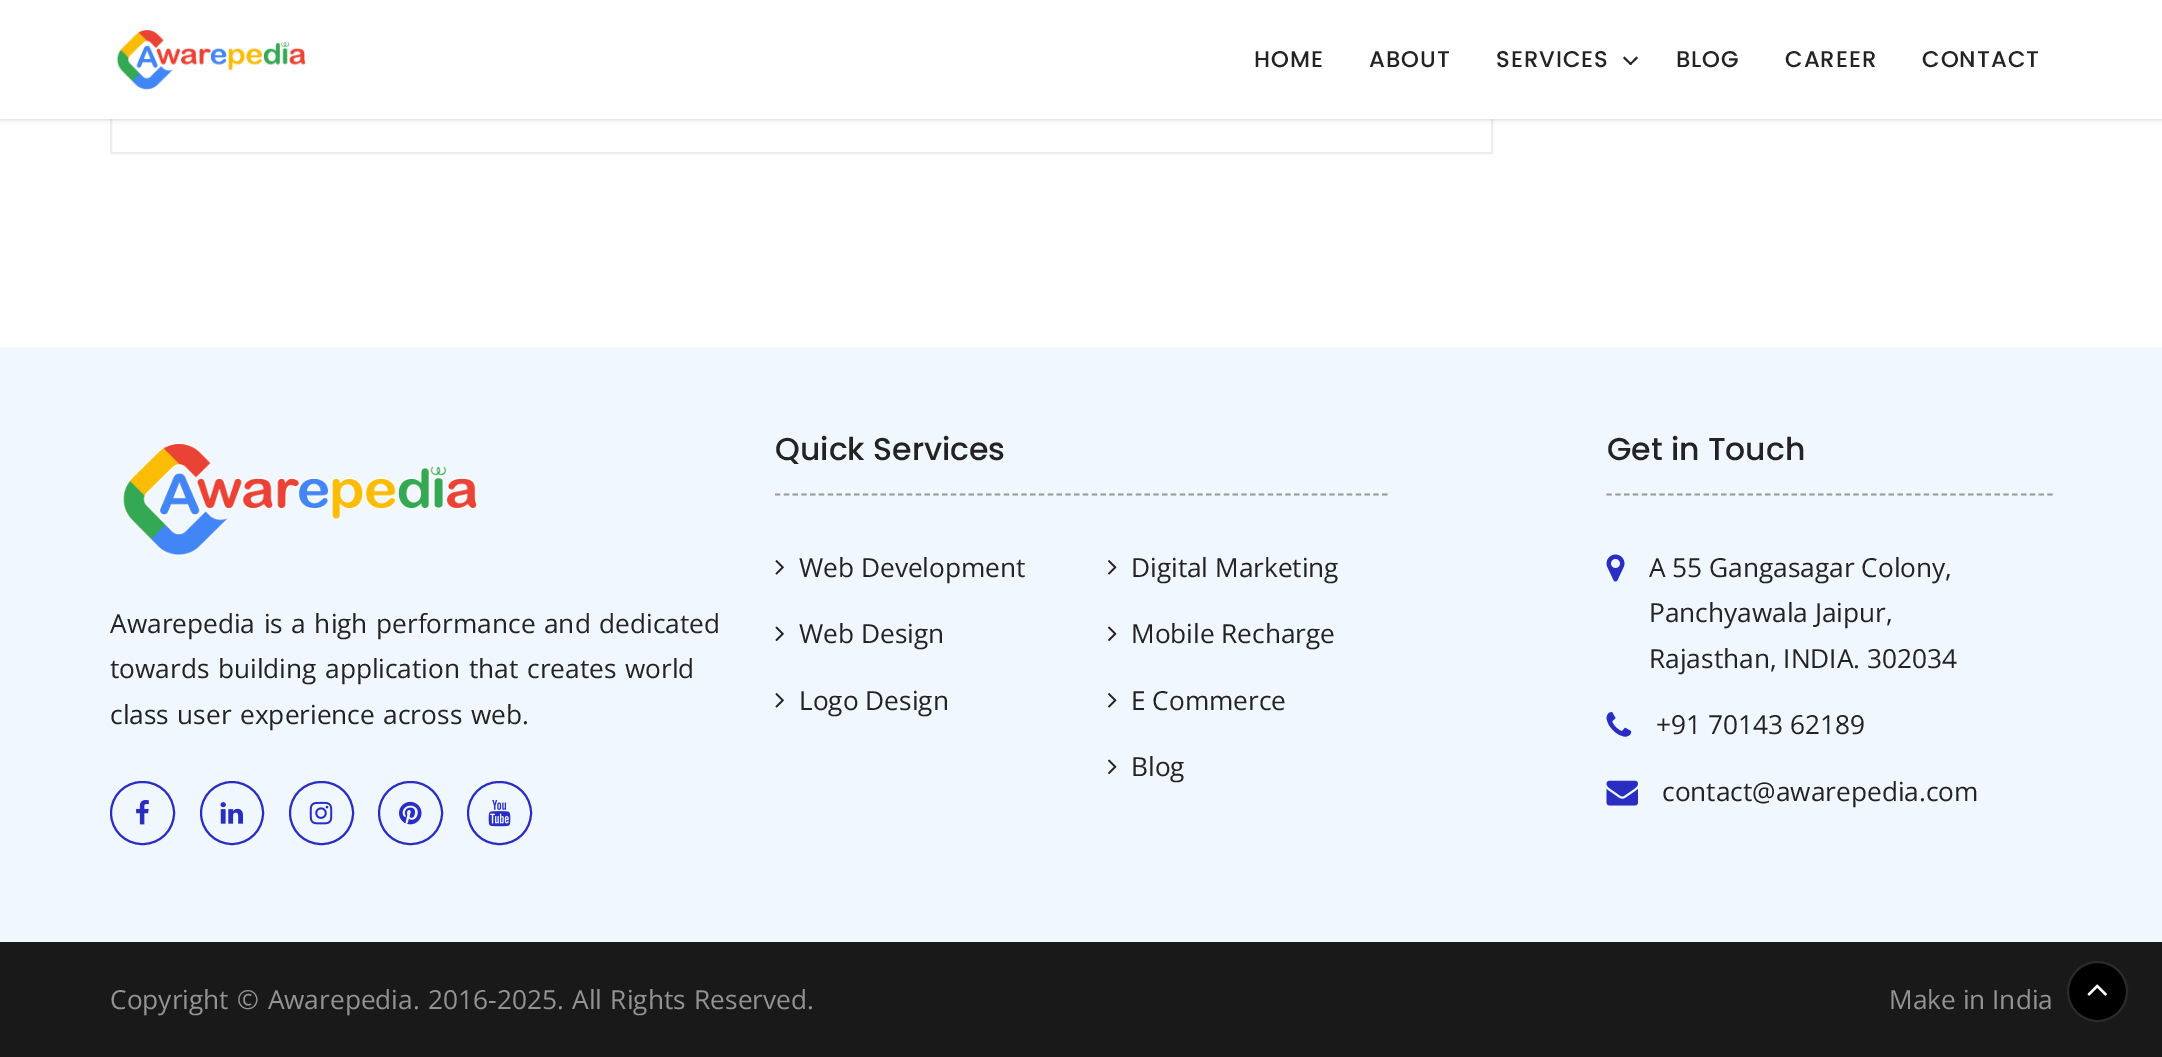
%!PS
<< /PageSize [2162 1057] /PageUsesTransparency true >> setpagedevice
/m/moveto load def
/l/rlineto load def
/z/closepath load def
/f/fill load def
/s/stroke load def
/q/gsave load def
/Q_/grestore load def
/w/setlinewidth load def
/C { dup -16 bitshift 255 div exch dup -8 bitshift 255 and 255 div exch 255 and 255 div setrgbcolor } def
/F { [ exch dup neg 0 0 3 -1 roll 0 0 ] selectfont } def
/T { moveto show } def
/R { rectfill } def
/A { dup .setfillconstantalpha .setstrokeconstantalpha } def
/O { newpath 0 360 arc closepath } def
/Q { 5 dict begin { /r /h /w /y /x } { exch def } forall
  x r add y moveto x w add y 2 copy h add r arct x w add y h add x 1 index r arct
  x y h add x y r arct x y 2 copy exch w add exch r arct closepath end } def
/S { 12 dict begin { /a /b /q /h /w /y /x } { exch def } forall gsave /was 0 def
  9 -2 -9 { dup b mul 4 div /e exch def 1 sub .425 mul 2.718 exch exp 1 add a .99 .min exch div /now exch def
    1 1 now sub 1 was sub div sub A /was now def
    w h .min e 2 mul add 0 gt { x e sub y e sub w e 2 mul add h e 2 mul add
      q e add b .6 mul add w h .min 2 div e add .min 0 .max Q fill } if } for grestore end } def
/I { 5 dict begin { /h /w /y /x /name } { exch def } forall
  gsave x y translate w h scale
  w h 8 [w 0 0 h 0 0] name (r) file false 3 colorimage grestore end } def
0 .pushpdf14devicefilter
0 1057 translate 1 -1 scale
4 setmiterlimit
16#FFFFFF C
0 0 2162 1057 R
16#EEEEEE C
2 w
111 -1 1381 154 rectstroke
16#000000 C
0 0 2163 119 0 2.5 .2 S
16#FFFFFF C
0 0 2162 119 R
(1.rgb) 116 30 190 60 I
/Poppins-Medium 22.75 F
16#232323 C
1254 67 m 1 0 (HOME) ashow
1369 67 m 1 0 (ABOUT) ashow
1496 67 m 1 0 (SERVICES) ashow
1636.5 56.5 m 1.5 1.5 l -7.5 7 l -1 -1 l z f
1624.5 56.5 m 7.5 7.5 l -1.5 1 l -7.5 -7 l z f
1676 67 m 1 0 (BLOG) ashow
1785 67 m 1 0 (CAREER) ashow
1922 67 m 1 0 (CONTACT) ashow
16#F1F7FF C
0 347 2162 595 R
(2.rgb) 122 442 356 114 I
/OpenSans-Regular 26.25 F
16#232323 C
110 633 m 1.75 0 32 (Awarepedia is a high performance and dedicated) widthshow
110 678 m 1.75 0 32 (towards building application) widthshow
469 678 m 1.75 0 32 (that creates world) widthshow
110 724 m 1.75 0 32 (class user experience across web.) widthshow
16#292DC2 C
111 782 63 62 31 Q s
(3.rgb) 136 800 13 25 I
232 813 31 O s
(4.rgb) 220 802 23 22 I
290 782 63 62 31 Q s
(5.rgb) 309 801 24 24 I
379 782 63 62 31 Q s
(6.rgb) 399 801 23 24 I
468 782 63 62 31 Q s
(7.rgb) 488 800 23 27 I
/Poppins-Medium 31.5 F
16#232323 C
(Quick Services) 775 460 T
16#999999 C
1.8 w
[5.25 3.55] 0 setdash
775 494.5 m 613 0 l s
(8.rgb) 775 560 9 15 I
/OpenSans-Regular 26.25 F
16#232323 C
(Web Development) 799 577 T
(9.rgb) 775 626 9 16 I
(Web Design) 799 643 T
(8.rgb) 775 693 9 15 I
(Logo Design) 799 710 T
(10.rgb) 1108 560 9 15 I
(Digital Marketing) 1131 577 T
(11.rgb) 1108 626 9 16 I
(Mobile Recharge) 1131 643 T
(10.rgb) 1108 693 9 15 I
(E Commerce) 1131 710 T
(11.rgb) 1108 759 9 16 I
(Blog) 1131 776 T
/Poppins-Medium 31.5 F
(Get in Touch) 1607 460 T
16#999999 C
[5.25 3.57] 0 setdash
1606.5 494.5 m 446.5 0 l s
(12.rgb) 1606 554 19 28 I
/OpenSans-Regular 26.25 F
16#232323 C
(A 55 Gangasagar Colony,) 1649 577 T
(Panchyawala Jaipur,) 1649 622 T
(Rajasthan, INDIA. 302034) 1649 668 T
(13.rgb) 1606 712 26 25 I
(+91 70143 62189) 1656 734 T
(14.rgb) 1606 780 32 26 I
(contact@awarepedia.com) 1662 801 T
16#191919 C
0 942 2162 115 R
16#939393 C
110 1009 m 1.75 0 32 (Copyright © Awarepedia. 2016-2025. All Rights Reserved.) widthshow
(Make in India) 1889 1009 T
16#000000 C
2097.5 991.5 29.5 O q f Q_
16#2A2A2A C
2 w
[] 0 setdash
s
(15.rgb) 2087 984 20 12 I
.poppdf14devicefilter showpage
